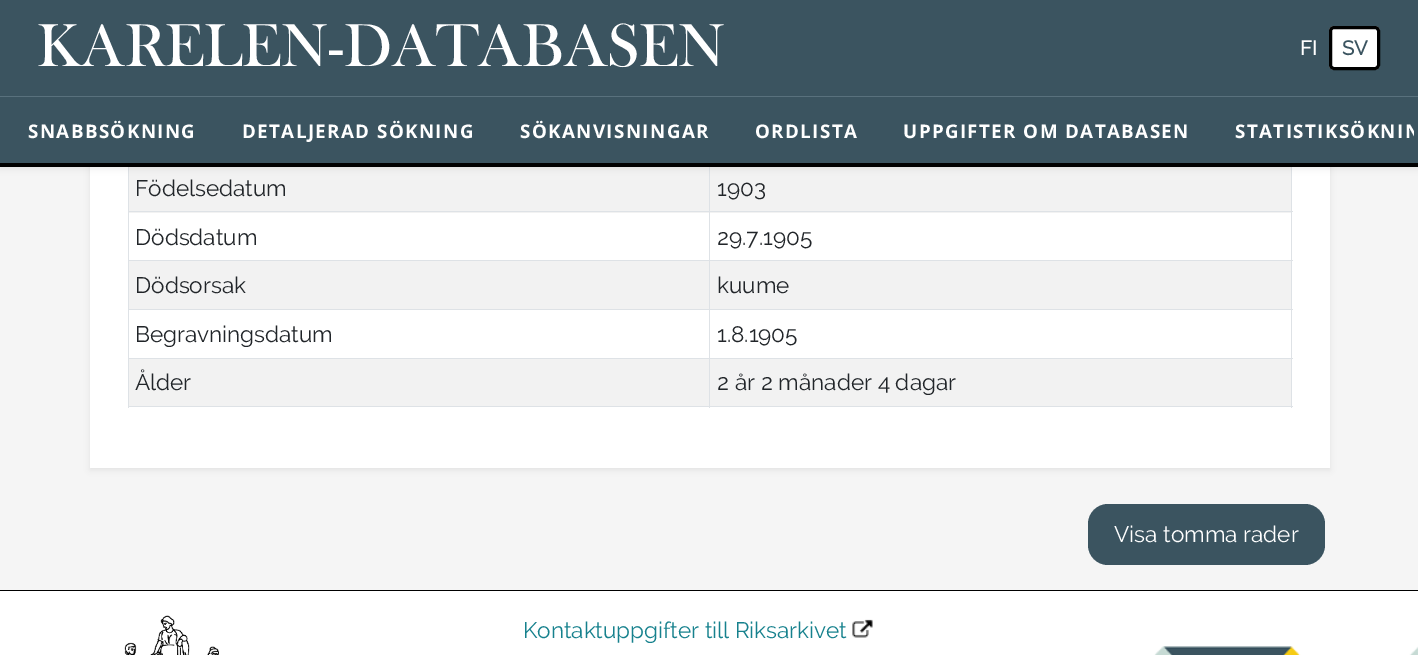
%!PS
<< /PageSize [1418 655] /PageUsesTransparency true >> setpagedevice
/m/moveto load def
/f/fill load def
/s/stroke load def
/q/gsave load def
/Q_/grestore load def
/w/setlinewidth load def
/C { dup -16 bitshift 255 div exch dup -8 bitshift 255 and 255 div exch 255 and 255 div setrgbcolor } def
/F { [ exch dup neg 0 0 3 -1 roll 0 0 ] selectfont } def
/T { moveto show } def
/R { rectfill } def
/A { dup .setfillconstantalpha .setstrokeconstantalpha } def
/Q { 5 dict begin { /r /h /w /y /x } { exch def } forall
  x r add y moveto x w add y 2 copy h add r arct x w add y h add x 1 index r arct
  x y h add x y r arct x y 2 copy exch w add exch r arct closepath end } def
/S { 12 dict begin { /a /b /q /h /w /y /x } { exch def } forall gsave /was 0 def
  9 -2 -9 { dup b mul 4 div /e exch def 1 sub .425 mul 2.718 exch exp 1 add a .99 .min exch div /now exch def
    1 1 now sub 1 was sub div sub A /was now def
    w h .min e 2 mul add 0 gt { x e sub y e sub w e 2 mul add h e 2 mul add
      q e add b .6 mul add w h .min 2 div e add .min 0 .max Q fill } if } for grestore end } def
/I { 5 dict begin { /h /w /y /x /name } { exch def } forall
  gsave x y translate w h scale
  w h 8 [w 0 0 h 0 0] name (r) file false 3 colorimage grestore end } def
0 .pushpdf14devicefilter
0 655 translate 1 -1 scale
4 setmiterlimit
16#F5F5F5 C
0 0 1418 655 R
16#000000 C
90 -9 1240 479 0 3 .07 S
16#FFFFFF C
90 167 1240 301 R
16#DEE2E6 C
1291 167 1 241 R
128 406 1165 1 R
128 167 1 241 R
16#F2F2F2 C
129 167 1162 46 R
16#DEE2E6 C
709 211 584 1 R
709 260 584 1 R
16#F2F2F2 C
129 261 1162 48 R
16#DEE2E6 C
709 309 584 1 R
709 358 584 1 R
16#F2F2F2 C
129 359 1162 47 R
16#DEE2E6 C
709 358 1 50 R
128 358 582 1 R
709 309 1 50 R
128 309 582 1 R
709 260 1 50 R
128 260 582 1 R
709 211 1 50 R
128 211 582 1 R
709 164 1 49 R
16#000000 C
0 3 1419 166 0 3 .07 S
16#3B5460 C
0 0 1418 163 R
16#000000 C
0 163 1418 4 R
/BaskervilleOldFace-Regular 62.5 F
16#FFFFFF C
(KARELEN-DATABASEN) 37 66 T
/Raleway-Bold 20 F
(FI) 1300 55 T
1329 26 51 44 5 Q f
16#000000 C
3 w
1330.5 27.5 48 41 3.5 Q s
16#3B5460 C
(SV) 1342 55 T
16#59717D C
0 96 1418 1 R
/OpenSans-Bold 18.75 F
16#FFFFFF C
28 138 m 1.4 0 (SNABBSÖKNING) ashow
242 138 m 1.4 0 (DETALJERAD SÖKNING) ashow
520 138 m 1.4 0 (SÖKANVISNINGAR) ashow
755 138 m 1.4 0 (ORDLISTA) ashow
903 138 m 1.4 0 (UPPGIFTER OM DATABASEN) ashow
q
6 104 1408 52 rectclip
1235 138 m 1.4 0 (STATISTIKSÖKNIN) ashow
Q_
/Raleway-Regular 22.5 F
16#212529 C
(Födelsedatum) 135 196 T
(1903) 717 196 T
(Dödsdatum) 135 245 T
(29.7.1905) 717 245 T
(Dödsorsak) 135 293 T
(kuume) 717 293 T
(Begravningsdatum) 135 342 T
(1.8.1905) 717 342 T
(Ålder) 135 390 T
(2 år 2 månader 4 dagar) 717 390 T
16#3B5460 C
1088 504 237 61 20 Q f
16#FFFFFF C
(Visa tomma rader) 1114 542 T
0 591 1418 64 R
16#000000 C
0 590 1418 1 R
(1.rgb) 124 615 95 40 I
16#16818D C
(Kontaktuppgifter till Riksarkivet) 523 638 T
(2.rgb) 852 619 21 19 I
(3.rgb) 1154 646 264 9 I
.poppdf14devicefilter showpage
